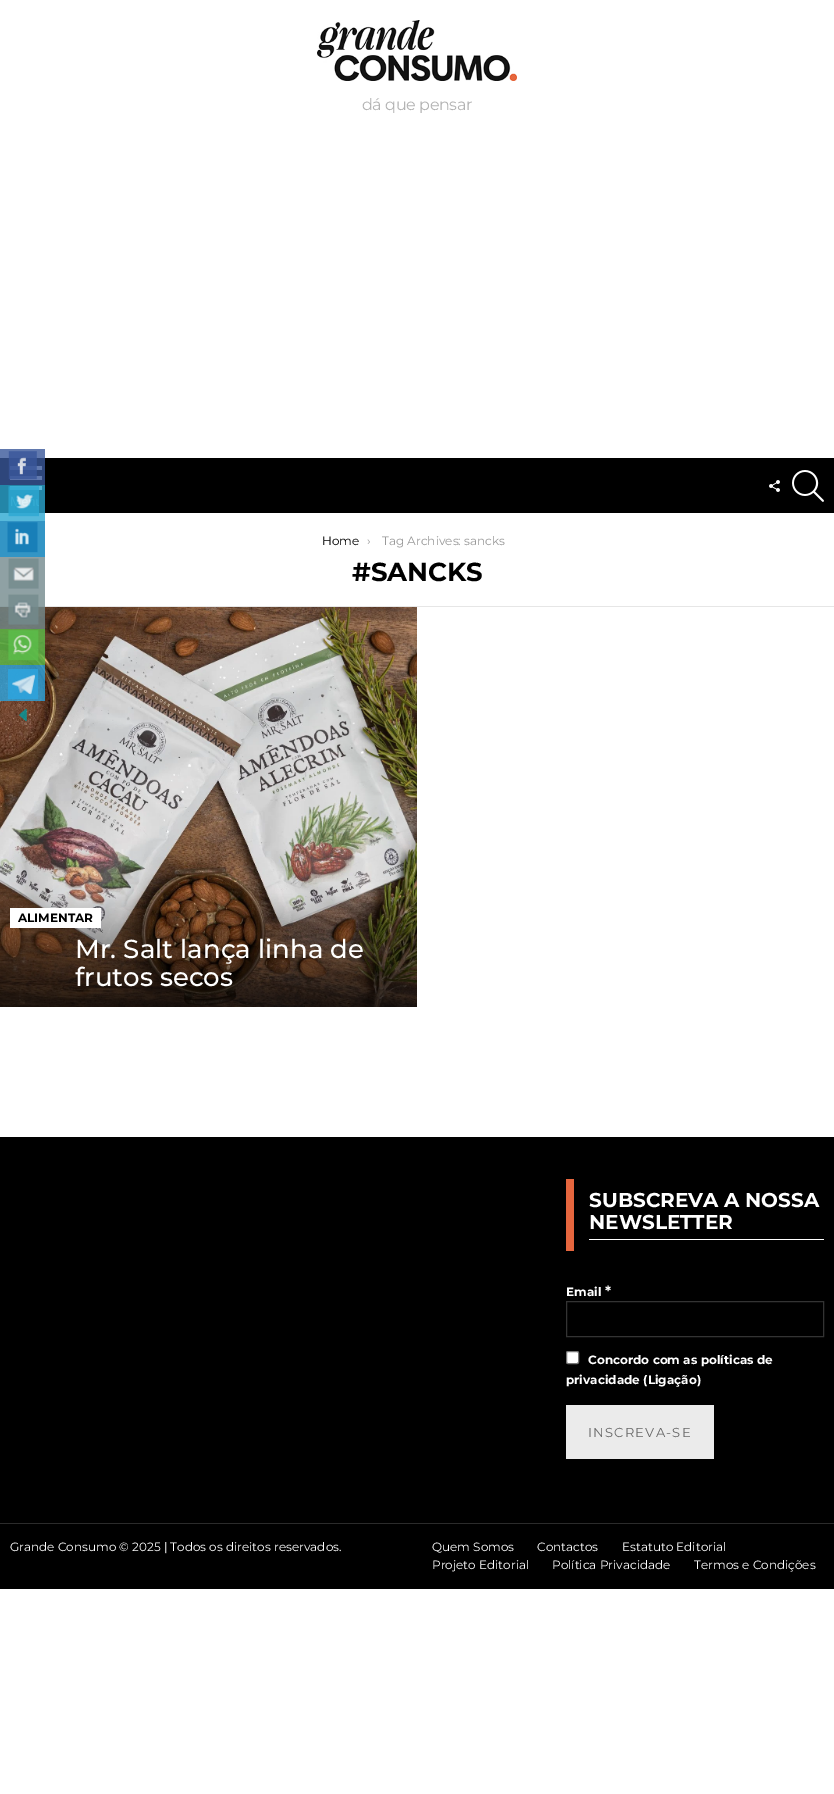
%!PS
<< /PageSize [834 1794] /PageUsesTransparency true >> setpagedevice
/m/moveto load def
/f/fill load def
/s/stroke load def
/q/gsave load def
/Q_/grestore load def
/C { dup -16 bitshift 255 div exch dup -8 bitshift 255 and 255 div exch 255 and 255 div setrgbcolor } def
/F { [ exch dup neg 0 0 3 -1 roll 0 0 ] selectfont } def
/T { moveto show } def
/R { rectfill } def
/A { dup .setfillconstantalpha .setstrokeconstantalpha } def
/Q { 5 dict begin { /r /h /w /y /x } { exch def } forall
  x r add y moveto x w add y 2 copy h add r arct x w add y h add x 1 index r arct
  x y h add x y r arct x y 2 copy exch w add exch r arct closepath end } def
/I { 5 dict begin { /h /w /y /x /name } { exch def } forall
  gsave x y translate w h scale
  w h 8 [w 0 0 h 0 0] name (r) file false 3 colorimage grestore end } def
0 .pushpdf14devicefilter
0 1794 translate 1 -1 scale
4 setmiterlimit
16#FFFFFF C
0 0 834 1794 R
(1.rgb) 317 20 200 61 I
/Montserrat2-Thin 16 F
16#B3B3B3 C
362 110 m -.4 0 (dá que pensar) ashow
16#000000 C
0 458 834 55 R
(2.rgb) 10 466 32 24 I
(3.rgb) 769 480 11 12 I
(4.rgb) 792 470 32 32 I
/Montserrat2-Thin 12 F
(Home) 322 545 T
16#999999 C
(›) 367 545 T
(Tag Archives: sancks) 382 545 T
/Montserrat-Thin 26 F
16#000000 C
(#SANCKS) 352 581 T
16#E6E6E6 C
0 606 834 1 R
(5.rgb) 0 607 417 400 I
16#FFFFFF C
10 908 91 20 R
/Montserrat-Thin 12 F
16#000000 C
(ALIMENTAR) 18 922 T
/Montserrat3-Thin 26 F
16#FFFFFF C
(Mr. Salt lança linha de) 75 958 T
(frutos secos) 75 986 T
16#000000 C
0 1137 834 386 R
16#E6663E C
566 1179 8 72 R
16#FFFFFF C
589 1239 235 1 R
/Montserrat-Thin 20 F
(SUBSCREVA A NOSSA) 589 1207 T
(NEWSLETTER) 589 1229 T
/Montserrat-Thin 12 F
(Email) 566 1296 T
/Montserrat-Thin 14 F
(*) 605 1296 T
16#333333 C
566.5 1301.5 257 35 rectstroke
16#FFFFFF C
566.5 1351.5 12 12 1.5 Q q f Q_
16#767676 C
s
/Montserrat-Thin 12 F
16#FFFFFF C
(Concordo com as políticas de) 588 1364 T
(privacidade \(Ligação\)) 566 1384 T
16#EBEBEB C
566 1405 148 54 R
/Montserrat2-Thin 13 F
16#666666 C
588 1437 m 1.25 0 (INSCREVA-SE) ashow
16#2B2B2B C
0 1523 834 1 R
16#000000 C
0 1524 834 65 R
/Montserrat2-Thin 12 F
16#FFFFFF C
(Grande Consumo © 2025 | Todos os direitos reservados.) 10 1551 T
(Quem Somos) 432 1551 T
(Contactos) 537 1551 T
(Estatuto Editorial) 622 1551 T
(Projeto Editorial) 432 1569 T
(Política Privacidade) 552 1569 T
(Termos e Condições) 694 1569 T
0.8 A
16#3A579A C
0 449 45 36 R
1 A
(6.rgb) 8 451 29 29 I
0.8 A
16#2CA8D2 C
0 485 45 36 R
1 A
(7.rgb) 8 486 31 31 I
16#3395C5 C
0 521 45 36 R
(8.rgb) 7 522 31 31 I
16#8FA1A4 C
0 557 45 36 R
(9.rgb) 8 558 31 31 I
0.8 A
16#738A8C C
0 593 45 36 R
1 A
(10.rgb) 8 594 31 31 I
0.8 A
16#5DBD4A C
0 629 45 36 R
1 A
(11.rgb) 8 630 31 31 I
0.8 A
16#2CA5E0 C
0 665 45 36 R
1 A
(12.rgb) 8 669 30 30 I
(13.rgb) 19 708 8 14 I
.poppdf14devicefilter showpage
